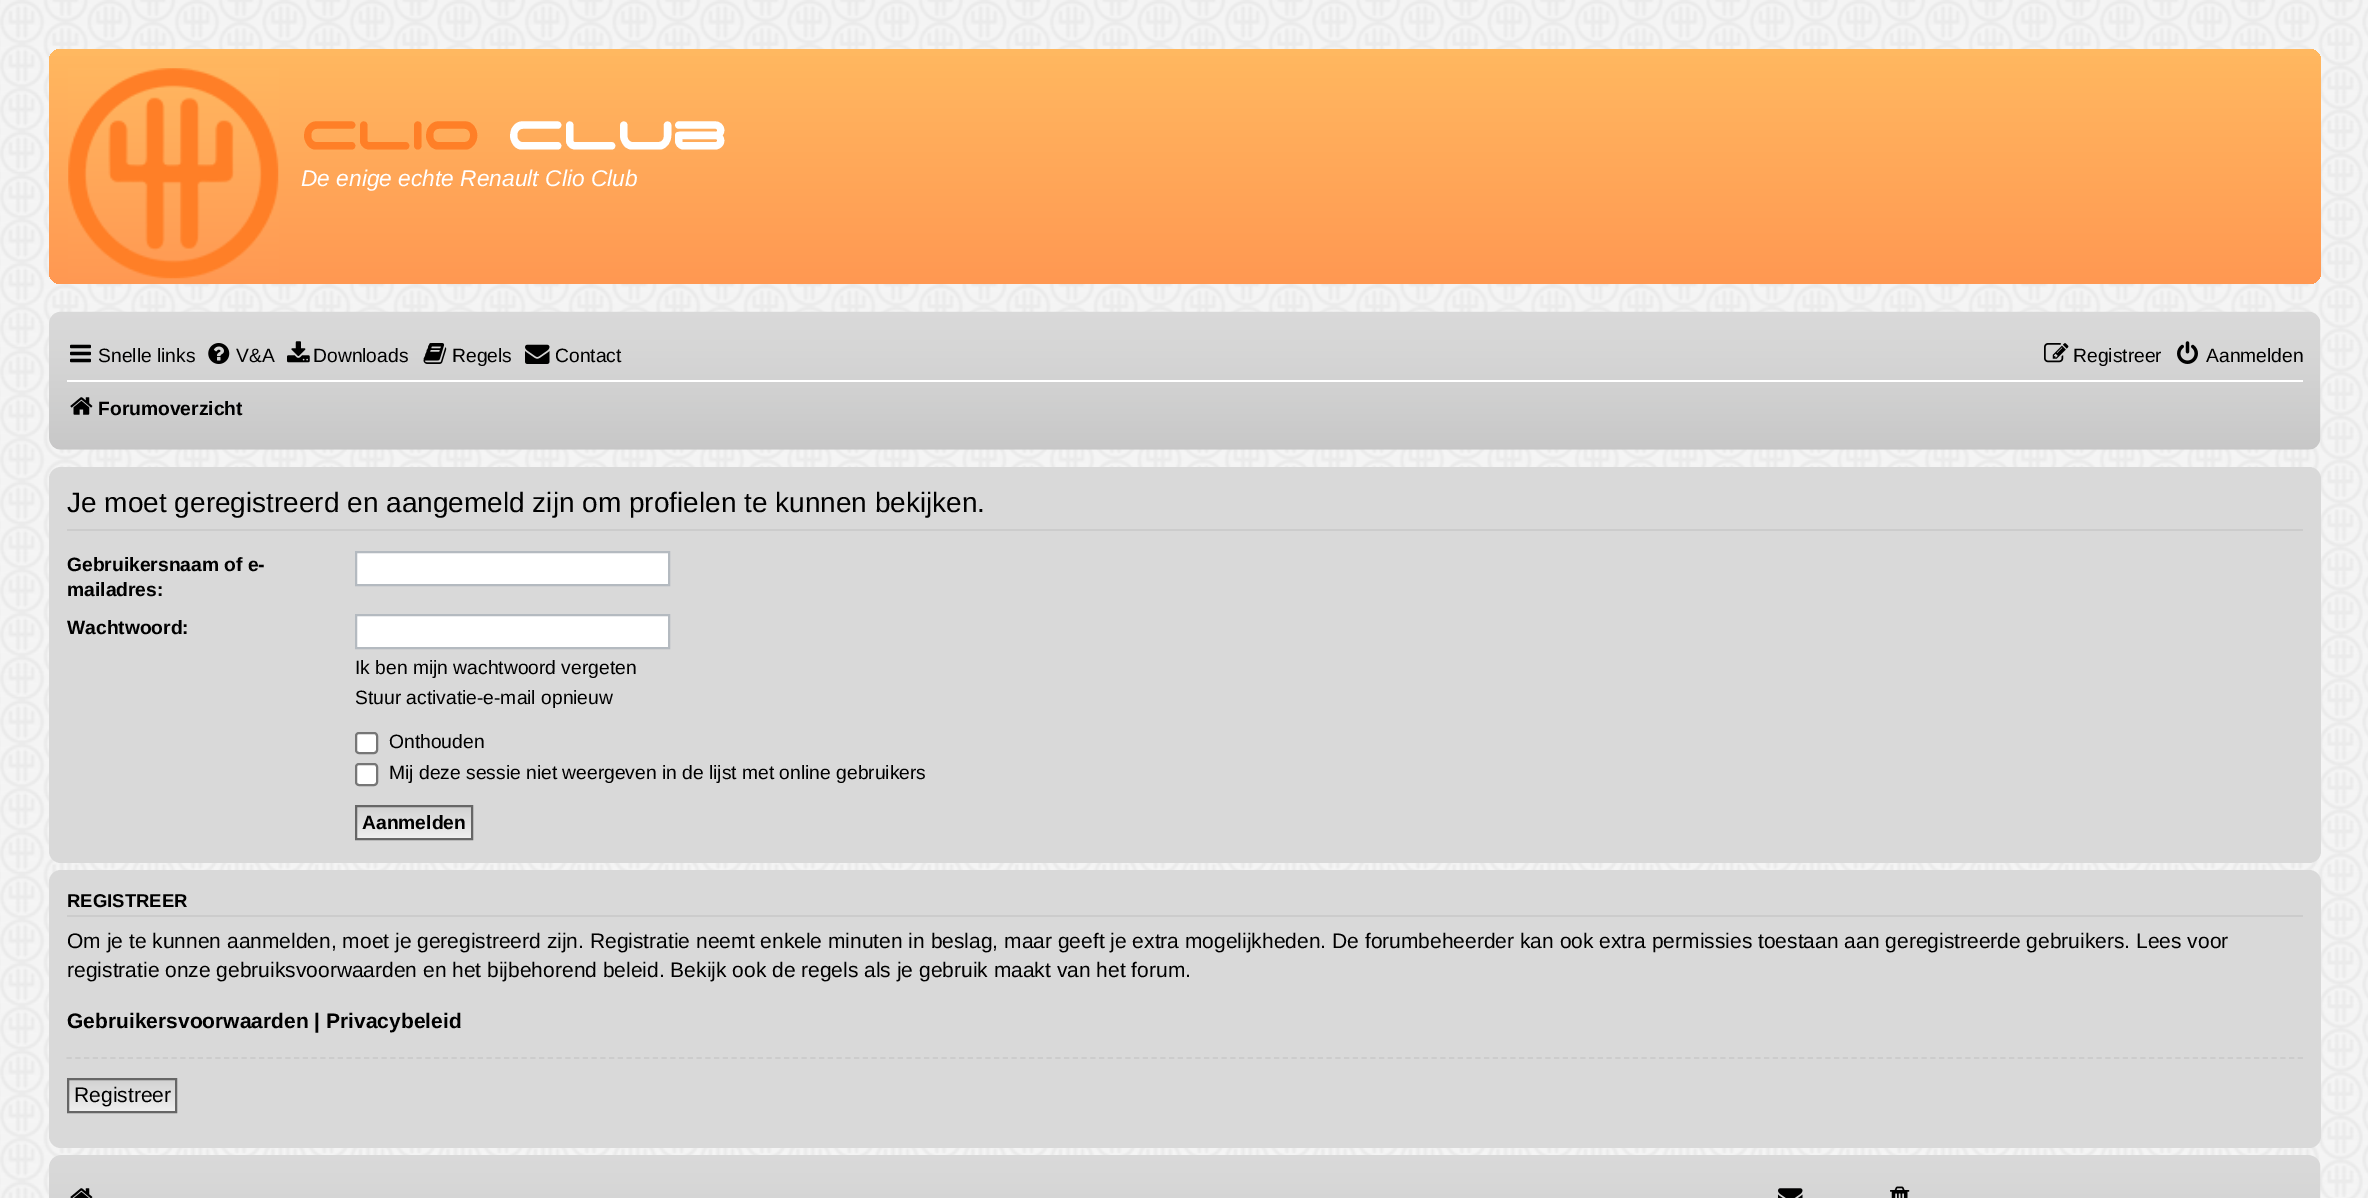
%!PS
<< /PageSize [2368 1198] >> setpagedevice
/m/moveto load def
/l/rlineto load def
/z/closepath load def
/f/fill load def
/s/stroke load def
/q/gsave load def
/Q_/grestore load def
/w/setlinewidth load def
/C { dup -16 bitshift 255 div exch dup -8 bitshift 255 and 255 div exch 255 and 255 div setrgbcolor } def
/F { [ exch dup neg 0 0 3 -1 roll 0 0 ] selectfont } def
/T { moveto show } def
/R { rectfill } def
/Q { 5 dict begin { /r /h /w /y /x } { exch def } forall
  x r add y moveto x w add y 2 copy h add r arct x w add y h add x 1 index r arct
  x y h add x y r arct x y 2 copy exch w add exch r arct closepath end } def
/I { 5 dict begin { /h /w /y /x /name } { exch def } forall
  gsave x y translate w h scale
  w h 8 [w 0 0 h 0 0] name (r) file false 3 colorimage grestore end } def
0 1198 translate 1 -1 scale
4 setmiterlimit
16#FFFFFF C
0 0 2368 1198 R
(1.rgb) 0 4 2368 1194 I
(2.rgb) 0 0 2368 1198 I
q 49 49 2272 235 12 Q clip newpath
<< /ShadingType 2 /ColorSpace /DeviceRGB /Coords [1185 49 1185 284] /Extend [true true] /Function << /FunctionType 3 /Domain [0 1] /Functions [<< /FunctionType 2 /Domain [0 1] /C0 [1 .722 .376] /C1 [1 .722 .376] /N 1 >> << /FunctionType 2 /Domain [0 1] /C0 [1 .722 .376] /C1 [1 .596 .322] /N 1 >>] /Bounds [.01] /Encode [0 1 0 1] >> >> shfill Q_
(3.rgb) 68 68 211 211 I
/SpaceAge-Bold 61 F
16#FF7F27 C
(Clio) 301 154 T
16#FFFFFF C
(Club) 507 154 T
/LiberationSans-Italic 22.75 F
(De enige echte Renault Clio Club) 301 186 T
(4.rgb) 49 311 2272 139 I
(5.rgb) 70 344 21 19 I
/LiberationSans-Regular 19.25 F
16#000000 C
(Snelle links) 98 362 T
(6.rgb) 208 343 22 21 I
(V&A) 236 362 T
(7.rgb) 287 341 23 22 I
(Downloads) 313 362 T
(8.rgb) 423 343 24 21 I
(Regels) 452 362 T
(9.rgb) 525 344 25 20 I
(Contact) 555 362 T
(10.rgb) 2044 343 25 20 I
(Registreer) 2073 362 T
(11.rgb) 2177 341 21 23 I
(Aanmelden) 2206 362 T
16#FFFFFF C
67 380 2236 2 R
(12.rgb) 70 397 23 18 I
/LiberationSans-Bold 19.25 F
16#000000 C
(Forumoverzicht) 98 415 T
16#D9D9D9 C
49 467 2272 396 12 Q f
16#CCCCCC C
67 529 2236 2 R
/LiberationSans-Regular 28 F
16#000000 C
(Je moet geregistreerd en aangemeld zijn om profielen te kunnen bekijken.) 67 512 T
/LiberationSans-Bold 19.25 F
(Gebruikersnaam of e-) 67 571 T
(mailadres:) 67 596 T
16#FFFFFF C
356 552 m 313 0 l 0 33 l -313 0 l z q f Q_
16#B4BAC0 C
2 w
s
16#000000 C
(Wachtwoord:) 67 634 T
16#FFFFFF C
356 615 m 313 0 l 0 33 l -313 0 l z q f Q_
16#B4BAC0 C
s
/LiberationSans-Regular 19.25 F
16#000000 C
(Ik ben mijn wachtwoord vergeten) 355 674 T
(Stuur activatie-e-mail opnieuw) 355 704 T
16#FFFFFF C
356 733 21 20 3 Q q f Q_
16#767676 C
s
16#000000 C
(Onthouden) 389 748 T
16#FFFFFF C
356 764 21 21 3 Q q f Q_
16#767676 C
s
16#000000 C
(Mij deze sessie niet weergeven in de lijst met online gebruikers) 389 779 T
q 357 807 m 114 0 l 0 31 l -114 0 l z clip newpath
<< /ShadingType 2 /ColorSpace /DeviceRGB /Coords [414 807 414 838] /Extend [true true] /Function << /FunctionType 2 /Domain [0 1] /C0 [.824 .824 .824] /C1 [.937 .937 .937] /N 1 >> >> shfill Q_
16#666666 C
356 806 116 33 rectstroke
/LiberationSans-Bold 19.25 F
16#000000 C
(Aanmelden) 362 829 T
16#D9D9D9 C
49 870 2272 278 12 Q f
16#CCCCCC C
67 915 2236 2 R
/LiberationSans-Bold 18.5 F
16#000000 C
(REGISTREER) 67 907 T
/LiberationSans-Regular 21 F
(Om je te kunnen aanmelden, moet je geregistreerd zijn. Registratie neemt enkele minuten in beslag, maar geeft je extra mogelijkheden. De forumbeheerder kan ook extra permissies toestaan aan geregistreerde gebruikers. Lees voor) 67 948 T
(registratie onze gebruiksvoorwaarden en het bijbehorend beleid. Bekijk ook de regels als je gebruik maakt van het forum.) 67 977 T
/LiberationSans-Bold 21 F
(Gebruikersvoorwaarden | Privacybeleid) 67 1028 T
16#CCCCCC C
1.8 w
[5.25 3.5] 0 setdash
66.5 1058 m 2236.5 0 l s
q 69 1080 m 106 0 l 0 31 l -106 0 l z clip newpath
<< /ShadingType 2 /ColorSpace /DeviceRGB /Coords [122 1080 122 1111] /Extend [true true] /Function << /FunctionType 2 /Domain [0 1] /C0 [.824 .824 .824] /C1 [.937 .937 .937] /N 1 >> >> shfill Q_
16#666666 C
2 w
[] 0 setdash
68 1079 108 33 rectstroke
/LiberationSans-Regular 21 F
16#000000 C
(Registreer) 74 1102 T
(13.rgb) 49 1155 2272 43 I
(14.rgb) 70 1188 23 10 I
(15.rgb) 1778 1188 25 10 I
(16.rgb) 1890 1186 20 12 I
showpage
